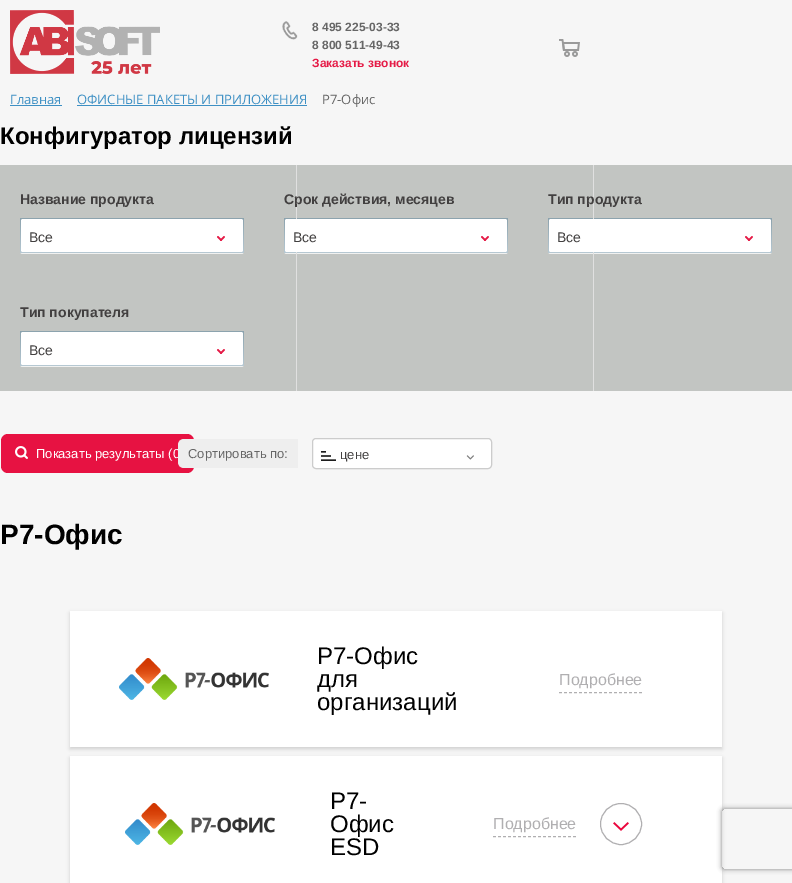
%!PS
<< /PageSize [792 883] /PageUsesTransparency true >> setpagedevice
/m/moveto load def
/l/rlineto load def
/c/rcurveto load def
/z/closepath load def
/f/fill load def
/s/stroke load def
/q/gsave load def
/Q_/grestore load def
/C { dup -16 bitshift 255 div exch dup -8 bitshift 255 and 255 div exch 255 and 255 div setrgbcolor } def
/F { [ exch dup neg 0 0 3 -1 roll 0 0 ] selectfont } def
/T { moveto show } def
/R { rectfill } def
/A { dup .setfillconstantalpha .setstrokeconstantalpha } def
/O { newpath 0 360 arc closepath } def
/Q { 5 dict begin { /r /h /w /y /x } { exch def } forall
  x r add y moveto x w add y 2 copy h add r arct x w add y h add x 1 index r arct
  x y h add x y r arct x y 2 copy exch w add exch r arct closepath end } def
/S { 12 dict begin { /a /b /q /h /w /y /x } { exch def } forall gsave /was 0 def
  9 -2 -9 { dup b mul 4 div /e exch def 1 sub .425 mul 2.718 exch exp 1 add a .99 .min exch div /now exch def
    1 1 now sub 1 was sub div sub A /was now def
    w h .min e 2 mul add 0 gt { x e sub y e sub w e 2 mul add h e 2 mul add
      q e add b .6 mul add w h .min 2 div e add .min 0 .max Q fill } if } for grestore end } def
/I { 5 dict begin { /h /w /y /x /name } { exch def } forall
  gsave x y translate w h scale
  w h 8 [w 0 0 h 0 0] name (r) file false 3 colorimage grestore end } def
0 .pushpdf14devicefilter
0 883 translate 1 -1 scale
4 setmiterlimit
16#F6F6F6 C
0 0 792 883 R
(1.rgb) 10 10 150 64 I
(2.rgb) 282 21 16 19 I
/LiberationSans-Bold 12 F
16#666666 C
(8 495 225-03-33) 312 31 T
(8 800 511-49-43) 312 49 T
16#E51A46 C
(Заказать звонок) 312 67 T
(3.rgb) 559 39 21 18 I
/OpenSans-Regular 13 F
16#3E90C4 C
(Главная) 10 104 T
10 105 52 1 R
(ОФИСНЫЕ ПАКЕТЫ И ПРИЛОЖЕНИЯ) 77 104 T
77 105 230 1 R
16#666666 C
(Р7-Офис) 322 104 T
/LiberationSans-Bold 24 F
16#000000 C
(Конфигуратор лицензий) 0 144 T
16#C2C5C2 C
0 165 792 226 R
16#F0F1F0 C
284 250 m 0 1 l 0 2 1 3 3 3 c 218 0 l 2 0 3 -1 3 -3 c 0 -1 l 0 2 -1 3 -3 3 c -218 0 l -2 0 -3 -1 -3 -3 c z f
q 284 218 224 35 3 Q clip newpath
<< /ShadingType 2 /ColorSpace /DeviceRGB /Coords [396 218 396 253] /Extend [true true] /Function << /FunctionType 2 /Domain [0 1] /C0 [.549 .639 .682] /C1 [.714 .784 .824] /N 1 >> >> shfill Q_
16#E0E0E0 C
296 165 1 226 R
16#F0F1F0 C
548 250 m 0 1 l 0 2 1 3 3 3 c 218 0 l 2 0 3 -1 3 -3 c 0 -1 l 0 2 -1 3 -3 3 c -218 0 l -2 0 -3 -1 -3 -3 c z f
q 548 218 224 35 3 Q clip newpath
<< /ShadingType 2 /ColorSpace /DeviceRGB /Coords [660 218 660 253] /Extend [true true] /Function << /FunctionType 2 /Domain [0 1] /C0 [.549 .639 .682] /C1 [.714 .784 .824] /N 1 >> >> shfill Q_
16#E0E0E0 C
593 165 1 226 R
/LiberationSans-Bold 14 F
16#424040 C
(Название продукта) 20 204 T
16#F0F1F0 C
20 250 m 0 1 l 0 2 1 3 3 3 c 218 0 l 2 0 3 -1 3 -3 c 0 -1 l 0 2 -1 3 -3 3 c -218 0 l -2 0 -3 -1 -3 -3 c z f
q 20 218 224 35 3 Q clip newpath
<< /ShadingType 2 /ColorSpace /DeviceRGB /Coords [132 218 132 253] /Extend [true true] /Function << /FunctionType 2 /Domain [0 1] /C0 [.549 .639 .682] /C1 [.714 .784 .824] /N 1 >> >> shfill Q_
16#FFFFFF C
21 219 222 33 2 Q f
/LiberationSans-Regular 14 F
16#424040 C
(Все) 29 242 T
(4.rgb) 217 236 8 5 I
/LiberationSans-Bold 14 F
(Срок действия, месяцев) 284 204 T
16#FFFFFF C
285 219 222 33 2 Q f
/LiberationSans-Regular 14 F
16#424040 C
(Все) 293 242 T
(4.rgb) 481 236 8 5 I
/LiberationSans-Bold 14 F
(Тип продукта) 548 204 T
16#FFFFFF C
549 219 222 33 2 Q f
/LiberationSans-Regular 14 F
16#424040 C
(Все) 557 242 T
(4.rgb) 745 236 8 5 I
/LiberationSans-Bold 14 F
(Тип покупателя) 20 317 T
16#F0F1F0 C
20 363 m 0 1 l 0 2 1 3 3 3 c 218 0 l 2 0 3 -1 3 -3 c 0 -1 l 0 2 -1 3 -3 3 c -218 0 l -2 0 -3 -1 -3 -3 c z f
q 20 331 224 35 3 Q clip newpath
<< /ShadingType 2 /ColorSpace /DeviceRGB /Coords [132 331 132 366] /Extend [true true] /Function << /FunctionType 2 /Domain [0 1] /C0 [.549 .639 .682] /C1 [.714 .784 .824] /N 1 >> >> shfill Q_
16#FFFFFF C
21 332 222 33 2 Q f
/LiberationSans-Regular 14 F
16#424040 C
(Все) 29 355 T
(4.rgb) 217 349 8 5 I
16#E71242 C
1 434 193 39 7 Q f
(5.rgb) 15 446 13 13 I
/LiberationSans-Regular 13 F
16#FFFFFF C
(Показать результаты \(0) 36 458 T
16#EEEEEE C
184 439 m 114 0 l 0 29 l -114 0 l -3.5 0 -6 -2.5 -6 -6 c 0 -17 l 0 -3.5 2.5 -6 6 -6 c z f
16#666666 C
(Сортировать по:) 188 458 T
16#FFFFFF C
312 438 180 31 4 Q f
0.2 A
16#000000 C
312.5 438.5 179 30 3.5 Q s
1 A
(6.rgb) 321 451 15 10 I
16#424040 C
(цене) 340 459 T
(7.rgb) 466 455 8 5 I
/LiberationSans-Bold 28 F
16#000000 C
(Р7-Офис) 0 544 T
70 613 652 136 0 2 .16 S
16#FFFFFF C
70 611 652 136 R
(8.rgb) 119 658 150 42 I
/LiberationSans-Regular 24 F
16#000000 C
(Р7-Офис) 317 664 T
(для) 317 687 T
(организаций) 317 710 T
/LiberationSans-Regular 16 F
16#B0AFB1 C
(Подробнее) 559 685 T
[3 2] 0 setdash
559 692.5 m 83 0 l s
16#000000 C
70 758 652 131 0 2 .16 S
16#FFFFFF C
70 756 652 127 R
(8.rgb) 125 803 150 42 I
/LiberationSans-Regular 24 F
16#000000 C
(Р7-) 330 809 T
(Офис) 330 832 T
(ESD) 330 855 T
/LiberationSans-Regular 16 F
16#B0AFB1 C
(Подробнее) 493 829 T
493 836.5 m 83 0 l s
[] 0 setdash
621 824 20.5 O s
(9.rgb) 613 822 16 9 I
q
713 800 m 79 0 l 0 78 l -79 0 l z 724 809 m 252 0 l 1 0 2 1 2 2 c 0 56 l 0 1 -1 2 -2 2 c -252 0 l -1 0 -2 -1 -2 -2 c 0 -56 l 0 -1 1 -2 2 -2 c z eoclip newpath
16#808080 C
722 809 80 60 2 2.5 1 S
Q_
.poppdf14devicefilter showpage
